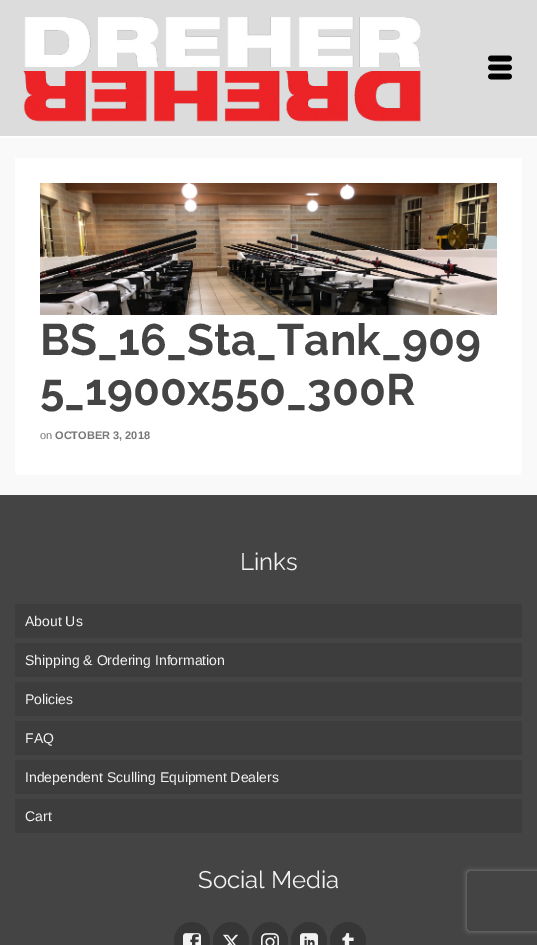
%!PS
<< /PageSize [537 945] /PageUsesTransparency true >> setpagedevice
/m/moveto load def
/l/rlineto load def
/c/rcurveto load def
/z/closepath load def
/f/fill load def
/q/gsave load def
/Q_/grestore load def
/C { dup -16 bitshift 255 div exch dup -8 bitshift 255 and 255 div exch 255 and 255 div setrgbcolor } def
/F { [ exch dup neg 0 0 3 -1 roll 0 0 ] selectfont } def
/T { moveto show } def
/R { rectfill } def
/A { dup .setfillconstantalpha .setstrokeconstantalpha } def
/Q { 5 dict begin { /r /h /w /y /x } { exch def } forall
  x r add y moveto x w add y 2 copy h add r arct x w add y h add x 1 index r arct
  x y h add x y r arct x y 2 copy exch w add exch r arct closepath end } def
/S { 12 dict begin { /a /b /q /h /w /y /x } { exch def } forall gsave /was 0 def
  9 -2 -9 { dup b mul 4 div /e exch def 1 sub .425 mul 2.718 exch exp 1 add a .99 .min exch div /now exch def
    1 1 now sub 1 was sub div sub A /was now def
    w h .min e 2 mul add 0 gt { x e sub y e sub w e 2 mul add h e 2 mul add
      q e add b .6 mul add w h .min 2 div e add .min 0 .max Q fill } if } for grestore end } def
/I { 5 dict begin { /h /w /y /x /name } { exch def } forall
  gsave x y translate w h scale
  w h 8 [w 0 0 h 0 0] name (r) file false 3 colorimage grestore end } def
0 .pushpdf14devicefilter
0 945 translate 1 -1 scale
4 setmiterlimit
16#FFFFFF C
0 0 537 945 R
16#DCDCDC C
0 0 537 136 R
(1.rgb) 23 17 398 105 I
(2.rgb) 488 55 24 25 I
16#F9F9F9 C
0 138 537 357 R
16#FFFFFF C
15 158 m 507 0 l 0 312 l 0 3 -2 5 -5 5 c -497 0 l -3 0 -5 -2 -5 -5 c z f
(3.rgb) 40 183 457 132 I
/Raleway-Bold 44 F
16#444444 C
(BS_16_Sta_Tank_909) 40 355 T
(5_1900x550_300R) 40 405 T
/LiberationSans-Regular 11 F
16#777777 C
(on) 40 439 T
/LiberationSans-Bold 11 F
(OCTOBER 3, 2018) 55 439 T
16#444444 C
0 495 537 450 R
/Raleway-Regular 24 F
16#F2F2F2 C
(Links) 240 570 T
16#3D3D3D C
15 604 507 34 R
/LiberationSans-Regular 14 F
16#F2F2F2 C
(About Us) 25 626 T
16#3D3D3D C
15 643 507 34 R
16#F2F2F2 C
(Shipping & Ordering Information) 25 665 T
16#3D3D3D C
15 682 507 34 R
16#F2F2F2 C
(Policies) 25 704 T
16#3D3D3D C
15 721 507 34 R
16#F2F2F2 C
(FAQ) 25 743 T
16#3D3D3D C
15 760 507 34 R
16#F2F2F2 C
(Independent Sculling Equipment Dealers) 25 782 T
16#3D3D3D C
15 799 507 34 R
16#F2F2F2 C
(Cart) 25 821 T
/Raleway-Regular 24 F
(Social Media) 198 888 T
16#363636 C
192 922 m 10 0 18 8.5 18 19 c 0 10.5 -8 19 -18 19 c -10 0 -18 -8.5 -18 -19 c 0 -10.5 8 -19 18 -19 c z f
(4.rgb) 183 933 18 12 I
231 922 m 10 0 18 8.5 18 19 c 0 10.5 -8 19 -18 19 c -10 0 -18 -8.5 -18 -19 c 0 -10.5 8 -19 18 -19 c z f
(5.rgb) 223 934 15 11 I
270 922 m 10 0 18 8.5 18 19 c 0 10.5 -8 19 -18 19 c -10 0 -18 -8.5 -18 -19 c 0 -10.5 8 -19 18 -19 c z f
(6.rgb) 261 933 18 12 I
309 922 m 10 0 18 8.5 18 19 c 0 10.5 -8 19 -18 19 c -10 0 -18 -8.5 -18 -19 c 0 -10.5 8 -19 18 -19 c z f
(7.rgb) 300 933 18 12 I
348 922 m 10 0 18 8.5 18 19 c 0 10.5 -8 19 -18 19 c -10 0 -18 -8.5 -18 -19 c 0 -10.5 8 -19 18 -19 c z f
(8.rgb) 342 933 12 12 I
q
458 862 m 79 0 l 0 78 l -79 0 l z 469 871 m 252 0 l 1 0 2 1 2 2 c 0 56 l 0 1 -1 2 -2 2 c -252 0 l -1 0 -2 -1 -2 -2 c 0 -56 l 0 -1 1 -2 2 -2 c z eoclip newpath
16#808080 C
467 871 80 60 2 2.5 1 S
Q_
.poppdf14devicefilter showpage
